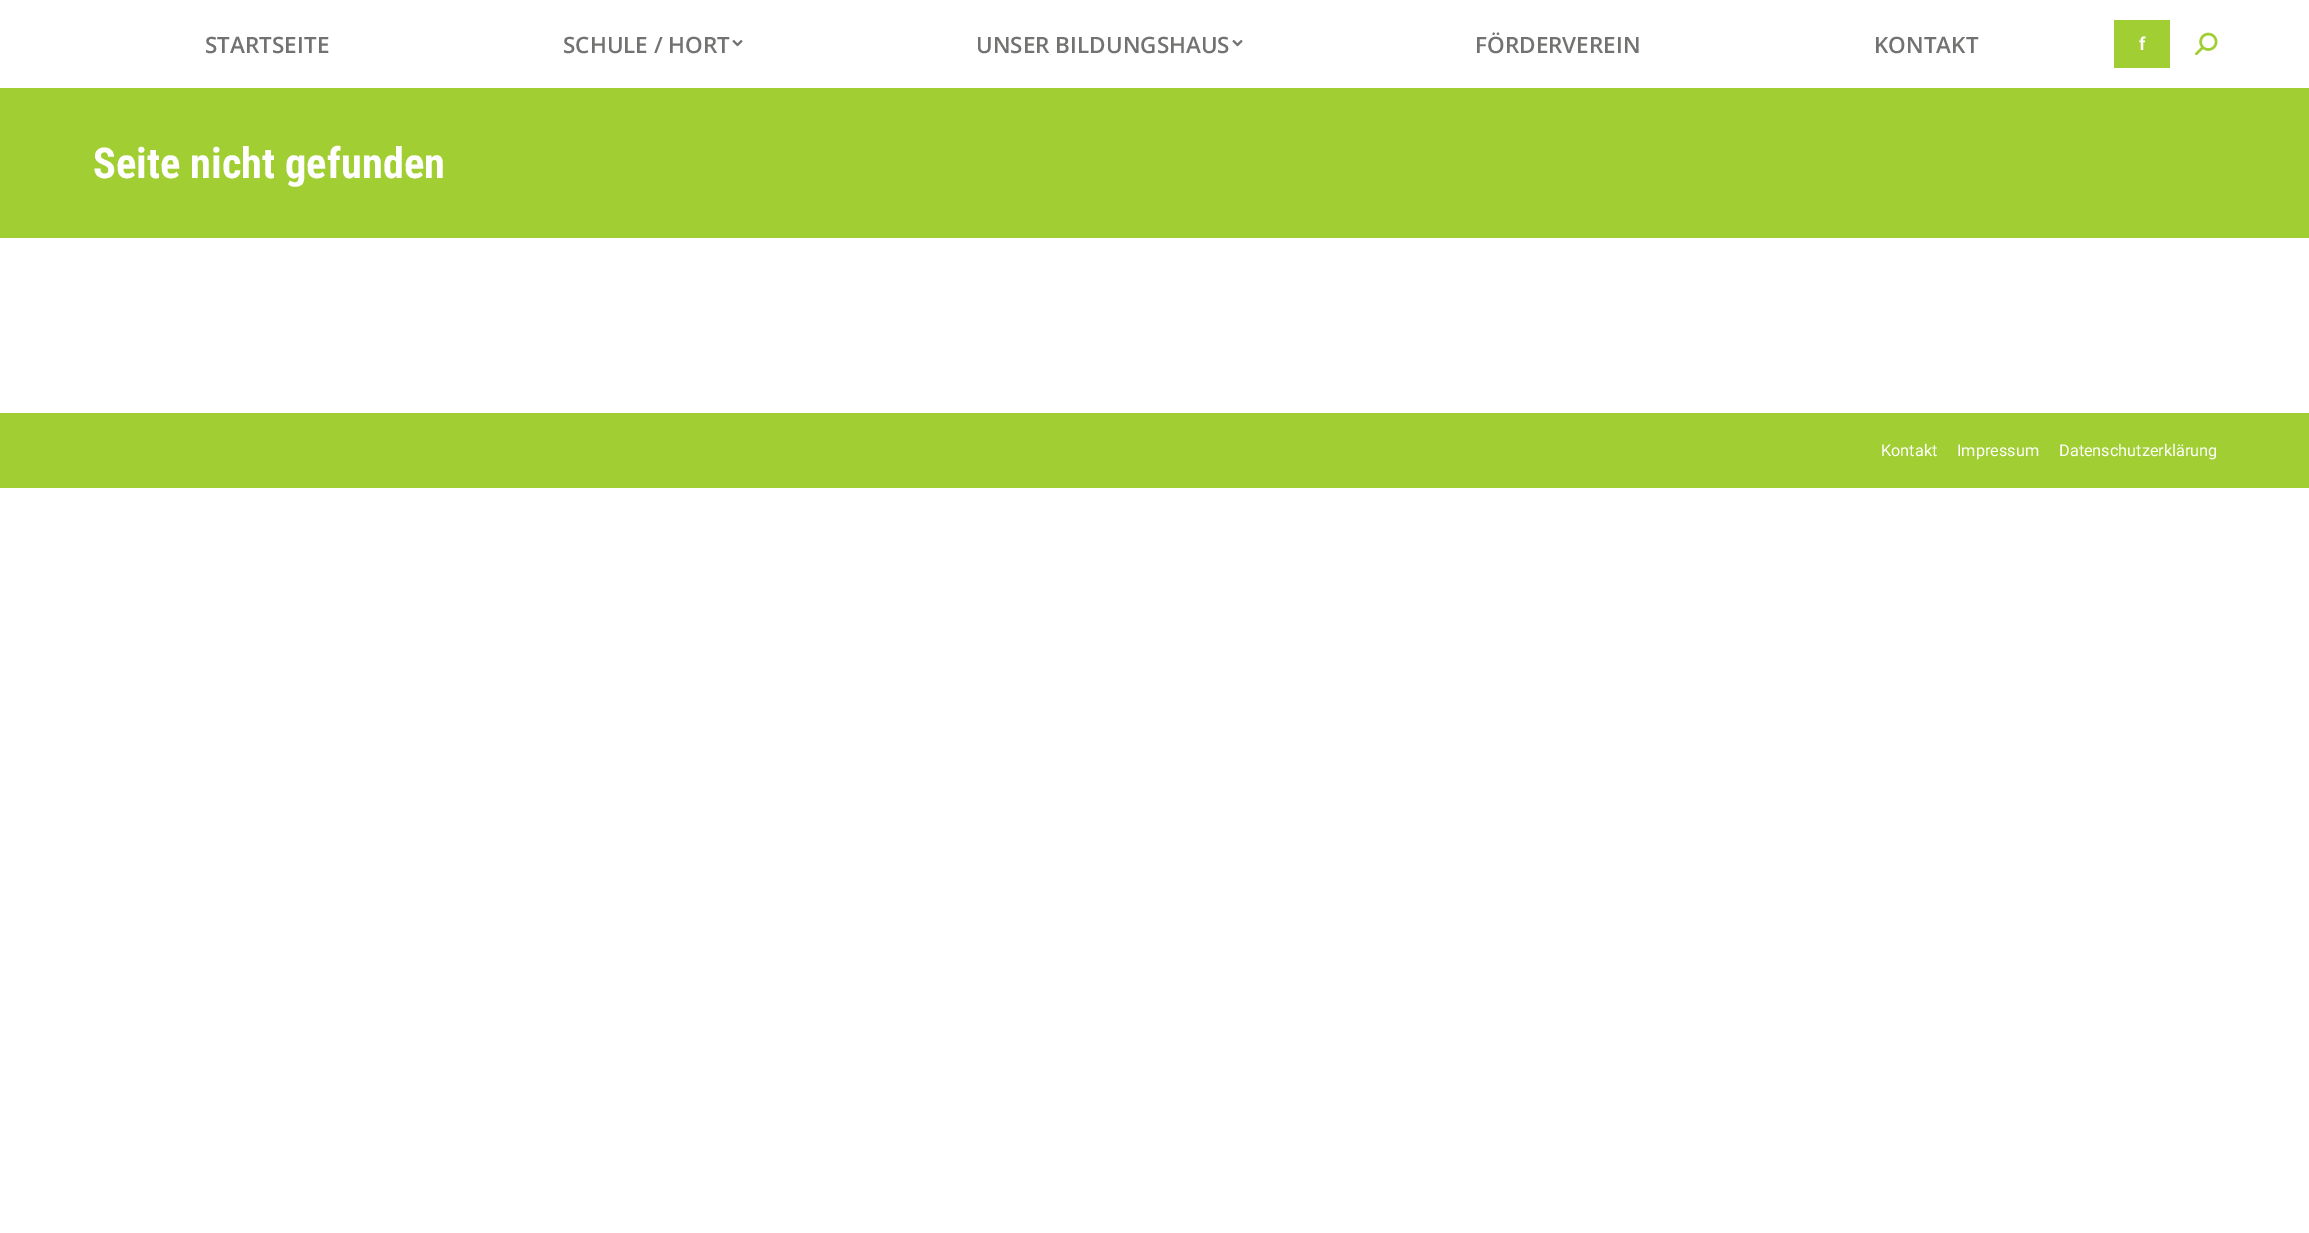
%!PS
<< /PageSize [2309 1233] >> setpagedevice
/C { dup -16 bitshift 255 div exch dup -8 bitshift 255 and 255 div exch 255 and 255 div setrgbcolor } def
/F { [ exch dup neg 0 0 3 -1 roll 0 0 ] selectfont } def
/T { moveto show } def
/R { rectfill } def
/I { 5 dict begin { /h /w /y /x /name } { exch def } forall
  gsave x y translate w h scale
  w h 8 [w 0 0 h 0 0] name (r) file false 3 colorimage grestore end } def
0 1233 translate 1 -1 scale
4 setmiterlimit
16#FFFFFF C
0 0 2309 1233 R
/OpenSans-SemiBold 22.5 F
16#727271 C
(STARTSEITE) 205 53 T
(SCHULE / HORT) 563 53 T
(1.rgb) 732 40 11 7 I
(UNSER BILDUNGSHAUS) 976 53 T
(1.rgb) 1232 40 11 7 I
(FÖRDERVEREIN) 1475 53 T
(KONTAKT) 1874 53 T
16#A1CE33 C
2114 20 56 48 R
/Roboto-Bold 18 F
16#FFFFFF C
(f) 2139 50 T
(2.rgb) 2195 32 23 24 I
16#A1CE33 C
0 88 2309 150 R
/RobotoCondensed-Bold 42.5 F
16#FFFFFF C
(Seite nicht gefunden) 93 178 T
16#A1CE33 C
0 413 2309 75 R
/Roboto-Regular 16.25 F
16#FFFFFF C
(Kontakt) 1881 456 T
(Impressum) 1957 456 T
(Datenschutzerklärung) 2059 456 T
showpage
